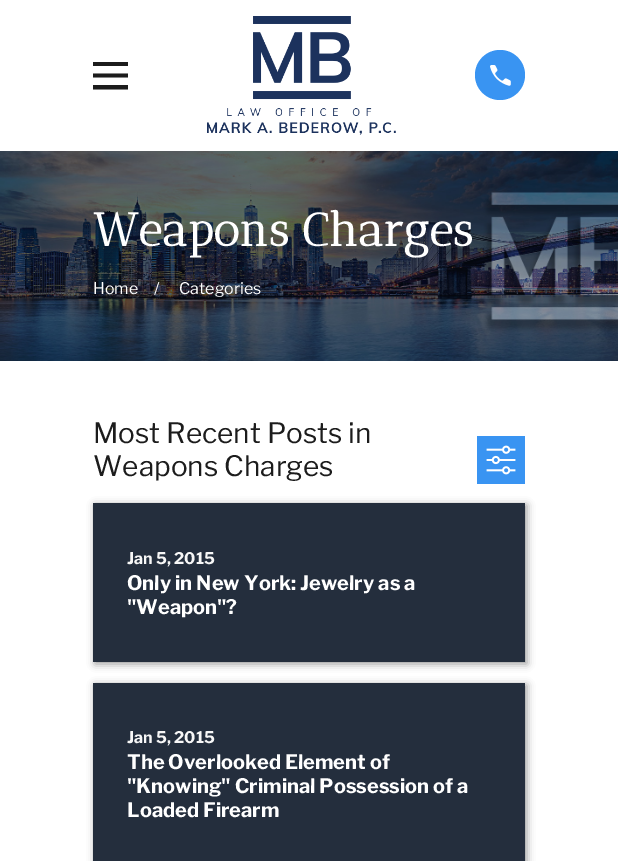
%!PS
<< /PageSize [618 861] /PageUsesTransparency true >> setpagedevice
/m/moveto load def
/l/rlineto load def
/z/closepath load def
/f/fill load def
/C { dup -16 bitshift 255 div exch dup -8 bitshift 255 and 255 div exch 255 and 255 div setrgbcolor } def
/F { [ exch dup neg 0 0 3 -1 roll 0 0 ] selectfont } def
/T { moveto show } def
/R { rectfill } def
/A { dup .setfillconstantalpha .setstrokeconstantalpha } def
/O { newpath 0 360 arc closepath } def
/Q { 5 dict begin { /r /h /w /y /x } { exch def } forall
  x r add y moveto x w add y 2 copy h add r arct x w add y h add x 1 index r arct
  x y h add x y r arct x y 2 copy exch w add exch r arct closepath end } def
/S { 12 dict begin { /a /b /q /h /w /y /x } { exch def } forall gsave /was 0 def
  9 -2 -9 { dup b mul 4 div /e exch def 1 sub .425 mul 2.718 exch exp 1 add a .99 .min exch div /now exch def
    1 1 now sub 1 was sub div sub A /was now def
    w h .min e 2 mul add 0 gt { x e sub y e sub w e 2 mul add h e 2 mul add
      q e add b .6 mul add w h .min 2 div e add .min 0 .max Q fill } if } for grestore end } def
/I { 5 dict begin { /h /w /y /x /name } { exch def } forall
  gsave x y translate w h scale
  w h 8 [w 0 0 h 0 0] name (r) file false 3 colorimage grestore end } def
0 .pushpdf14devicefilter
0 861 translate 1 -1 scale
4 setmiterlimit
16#FFFFFF C
0 0 618 861 R
16#1C1C1C C
93 62 m 0 4 l 35 0 l 0 -4 l z 93 73.5 m 0 4 l 35 0 l 0 -4 l z 93 85 m 0 4.5 l 35 0 l 0 -4.5 l z f
(1.rgb) 207 16 189 119 I
16#3994F2 C
500 75 25 O f
(2.rgb) 490 65 21 21 I
(3.rgb) 0 151 618 210 I
/AnticDidone-Bold 46.5 F
16#FFFFFF C
(Weapons Charges) 93 246 T
/LibreFranklin-Regular 16 F
(Home) 93 294 T
(/) 154 294 T
(Categories) 179 294 T
/LibreFranklin-Regular 28 F
16#1C1C1C C
(Most Recent Posts in) 93 443 T
(Weapons Charges) 93 476 T
16#3994F2 C
477 436 48 48 R
(4.rgb) 486 445 30 30 I
16#000000 C
95 505 432 159 0 4 .4 S
16#242E3D C
93 503 432 159 R
/LibreFranklin-Bold 16 F
16#F7F7F7 C
(Jan 5, 2015) 127 564 T
/LibreFranklin-Bold 20 F
16#FFFFFF C
(Only in New York: Jewelry as a) 127 590 T
("Weapon"?) 127 614 T
16#000000 C
95 685 432 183 0 4 .4 S
16#242E3D C
93 683 432 178 R
/LibreFranklin-Bold 16 F
16#F7F7F7 C
(Jan 5, 2015) 127 743 T
/LibreFranklin-Bold 20 F
16#FFFFFF C
(The Overlooked Element of) 127 769 T
("Knowing" Criminal Possession of a) 127 793 T
(Loaded Firearm) 127 817 T
.poppdf14devicefilter showpage
